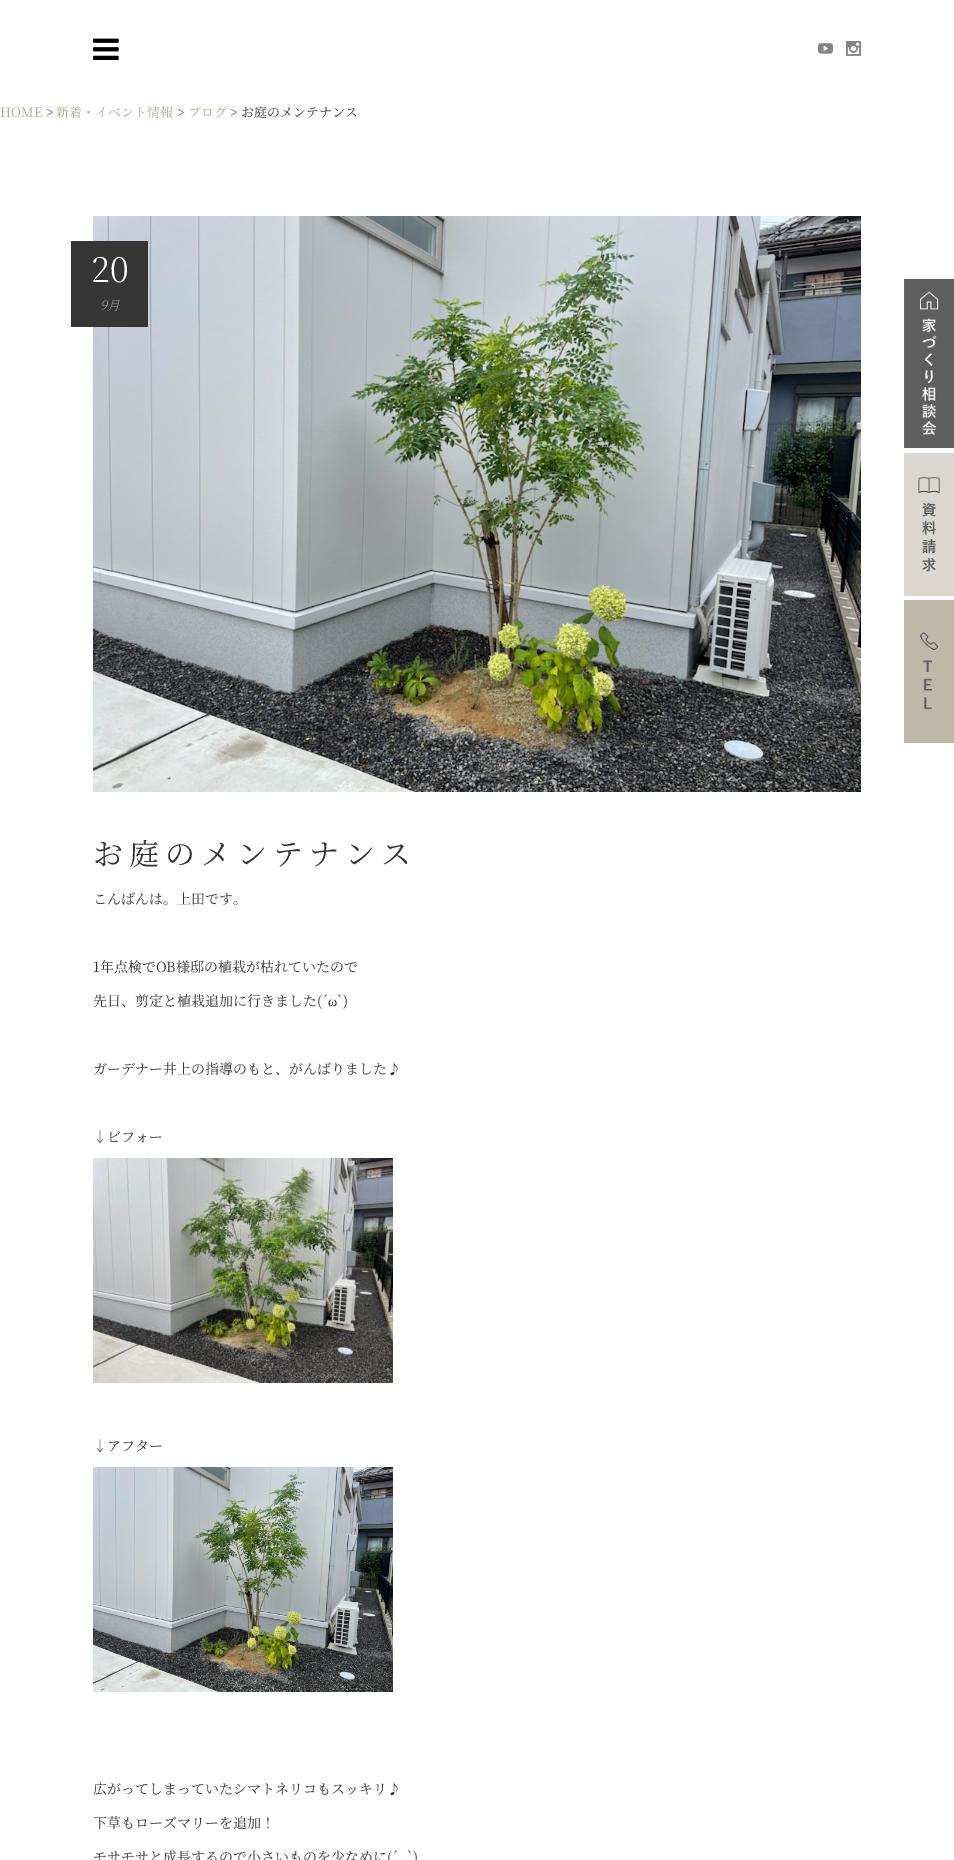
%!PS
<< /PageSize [954 1860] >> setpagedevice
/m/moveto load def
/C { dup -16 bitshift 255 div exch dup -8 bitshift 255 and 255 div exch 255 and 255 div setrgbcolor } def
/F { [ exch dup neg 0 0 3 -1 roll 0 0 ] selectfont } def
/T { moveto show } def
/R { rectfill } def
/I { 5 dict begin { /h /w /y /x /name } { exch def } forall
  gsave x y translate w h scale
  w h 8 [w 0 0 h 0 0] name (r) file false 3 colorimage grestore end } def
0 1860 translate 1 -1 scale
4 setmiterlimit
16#FFFFFF C
0 0 954 1860 R
(1.rgb) 93 38 26 22 I
(2.rgb) 818 43 15 11 I
(3.rgb) 846 40 15 16 I
/NotoSerifJP-ExtraLight 13 F
16#AFA592 C
(HOME) 0 117 T
16#333333 C
(>) 46 117 T
16#AFA592 C
(新着・イベント情報) 56 117 T
16#333333 C
(>) 177 117 T
16#AFA592 C
(ブログ) 188 117 T
16#333333 C
(> お庭のメンテナンス) 230 117 T
(4.rgb) 93 216 768 576 I
16#363636 C
71 241 77 86 R
/NotoSerifJP-Light 34 F
16#FFFFFF C
(20) 91 282 T
/NotoSerifJP-LightItalic 13 F
16#9D9FA2 C
(9月) 100 310 T
/NotoSerifJP-ExtraLight 30 F
16#333333 C
93 865 m 6 0 (お庭のメンテナンス) ashow
/NotoSerifJP-ExtraLight 14 F
(こんばんは。上田です。) 93 904 T
(1年点検でOB様邸の植栽が枯れていたので) 93 972 T
(先日、剪定と植栽追加に行きました\(´) 93 1006 T
/LiberationSerif-Regular 14 F
(ω) 328 1006 T
/NotoSerifJP-ExtraLight 14 F
(`\)) 337 1006 T
(ガーデナー井上の指導のもと、がんばりました♪) 93 1074 T
(↓ビフォー) 93 1142 T
(5.rgb) 93 1158 300 225 I
(↓アフター) 93 1451 T
(6.rgb) 93 1467 300 225 I
(広がってしまっていたシマトネリコもスッキリ♪) 93 1794 T
(下草もローズマリーを追加！) 93 1828 T
(モサモサと成長するので小さいものを少なめに\(´) 93 1862 T
(`\)) 407 1862 T
(7.rgb) 904 279 50 169 I
(8.rgb) 904 453 50 143 I
(9.rgb) 904 600 50 143 I
showpage
